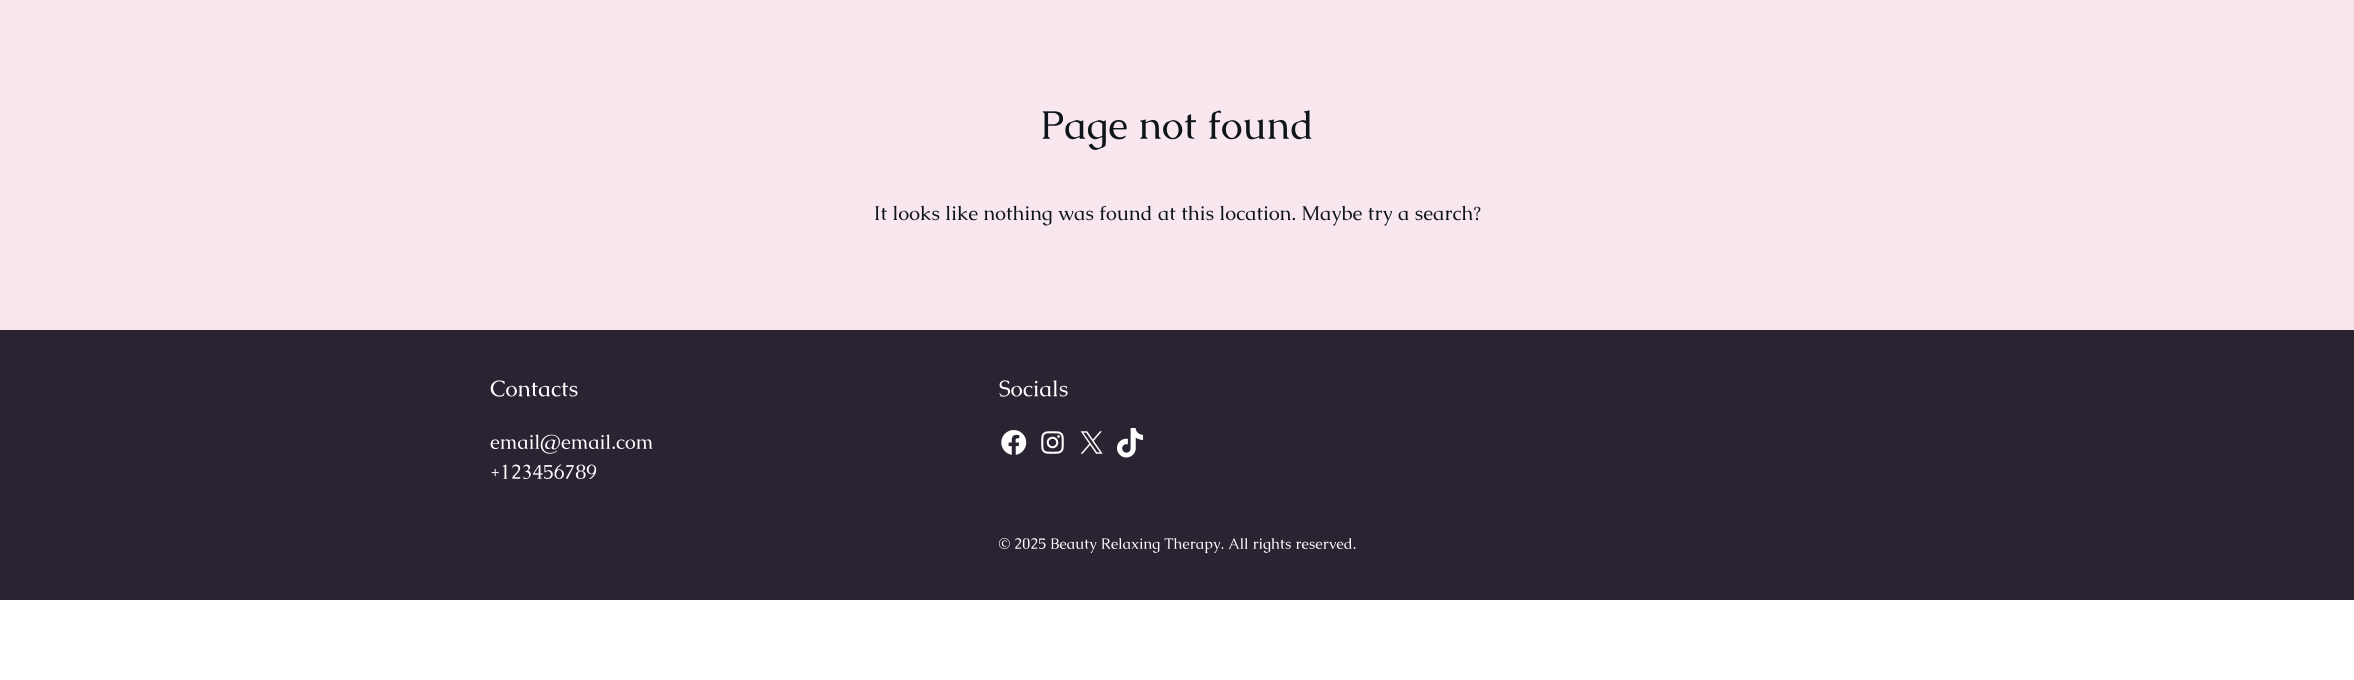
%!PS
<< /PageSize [2354 680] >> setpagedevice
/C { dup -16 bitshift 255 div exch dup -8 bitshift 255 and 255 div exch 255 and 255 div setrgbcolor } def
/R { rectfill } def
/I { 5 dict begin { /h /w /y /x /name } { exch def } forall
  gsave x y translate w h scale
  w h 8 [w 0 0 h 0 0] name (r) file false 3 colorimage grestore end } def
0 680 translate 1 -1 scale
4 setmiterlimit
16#FFFFFF C
0 0 2354 680 R
16#F8E7EF C
0 0 2354 330 R
(1.rgb) 1042 110 270 40 I
(2.rgb) 875 205 606 21 I
16#2B2331 C
0 330 2354 270 R
(3.rgb) 490 380 88 17 I
(4.rgb) 490 434 163 20 I
(5.rgb) 491 464 106 16 I
(6.rgb) 999 380 69 17 I
(7.rgb) 1001 430 26 25 I
(8.rgb) 1041 431 23 23 I
(9.rgb) 1080 431 23 23 I
(10.rgb) 1117 428 27 30 I
(11.rgb) 998 538 358 16 I
showpage
